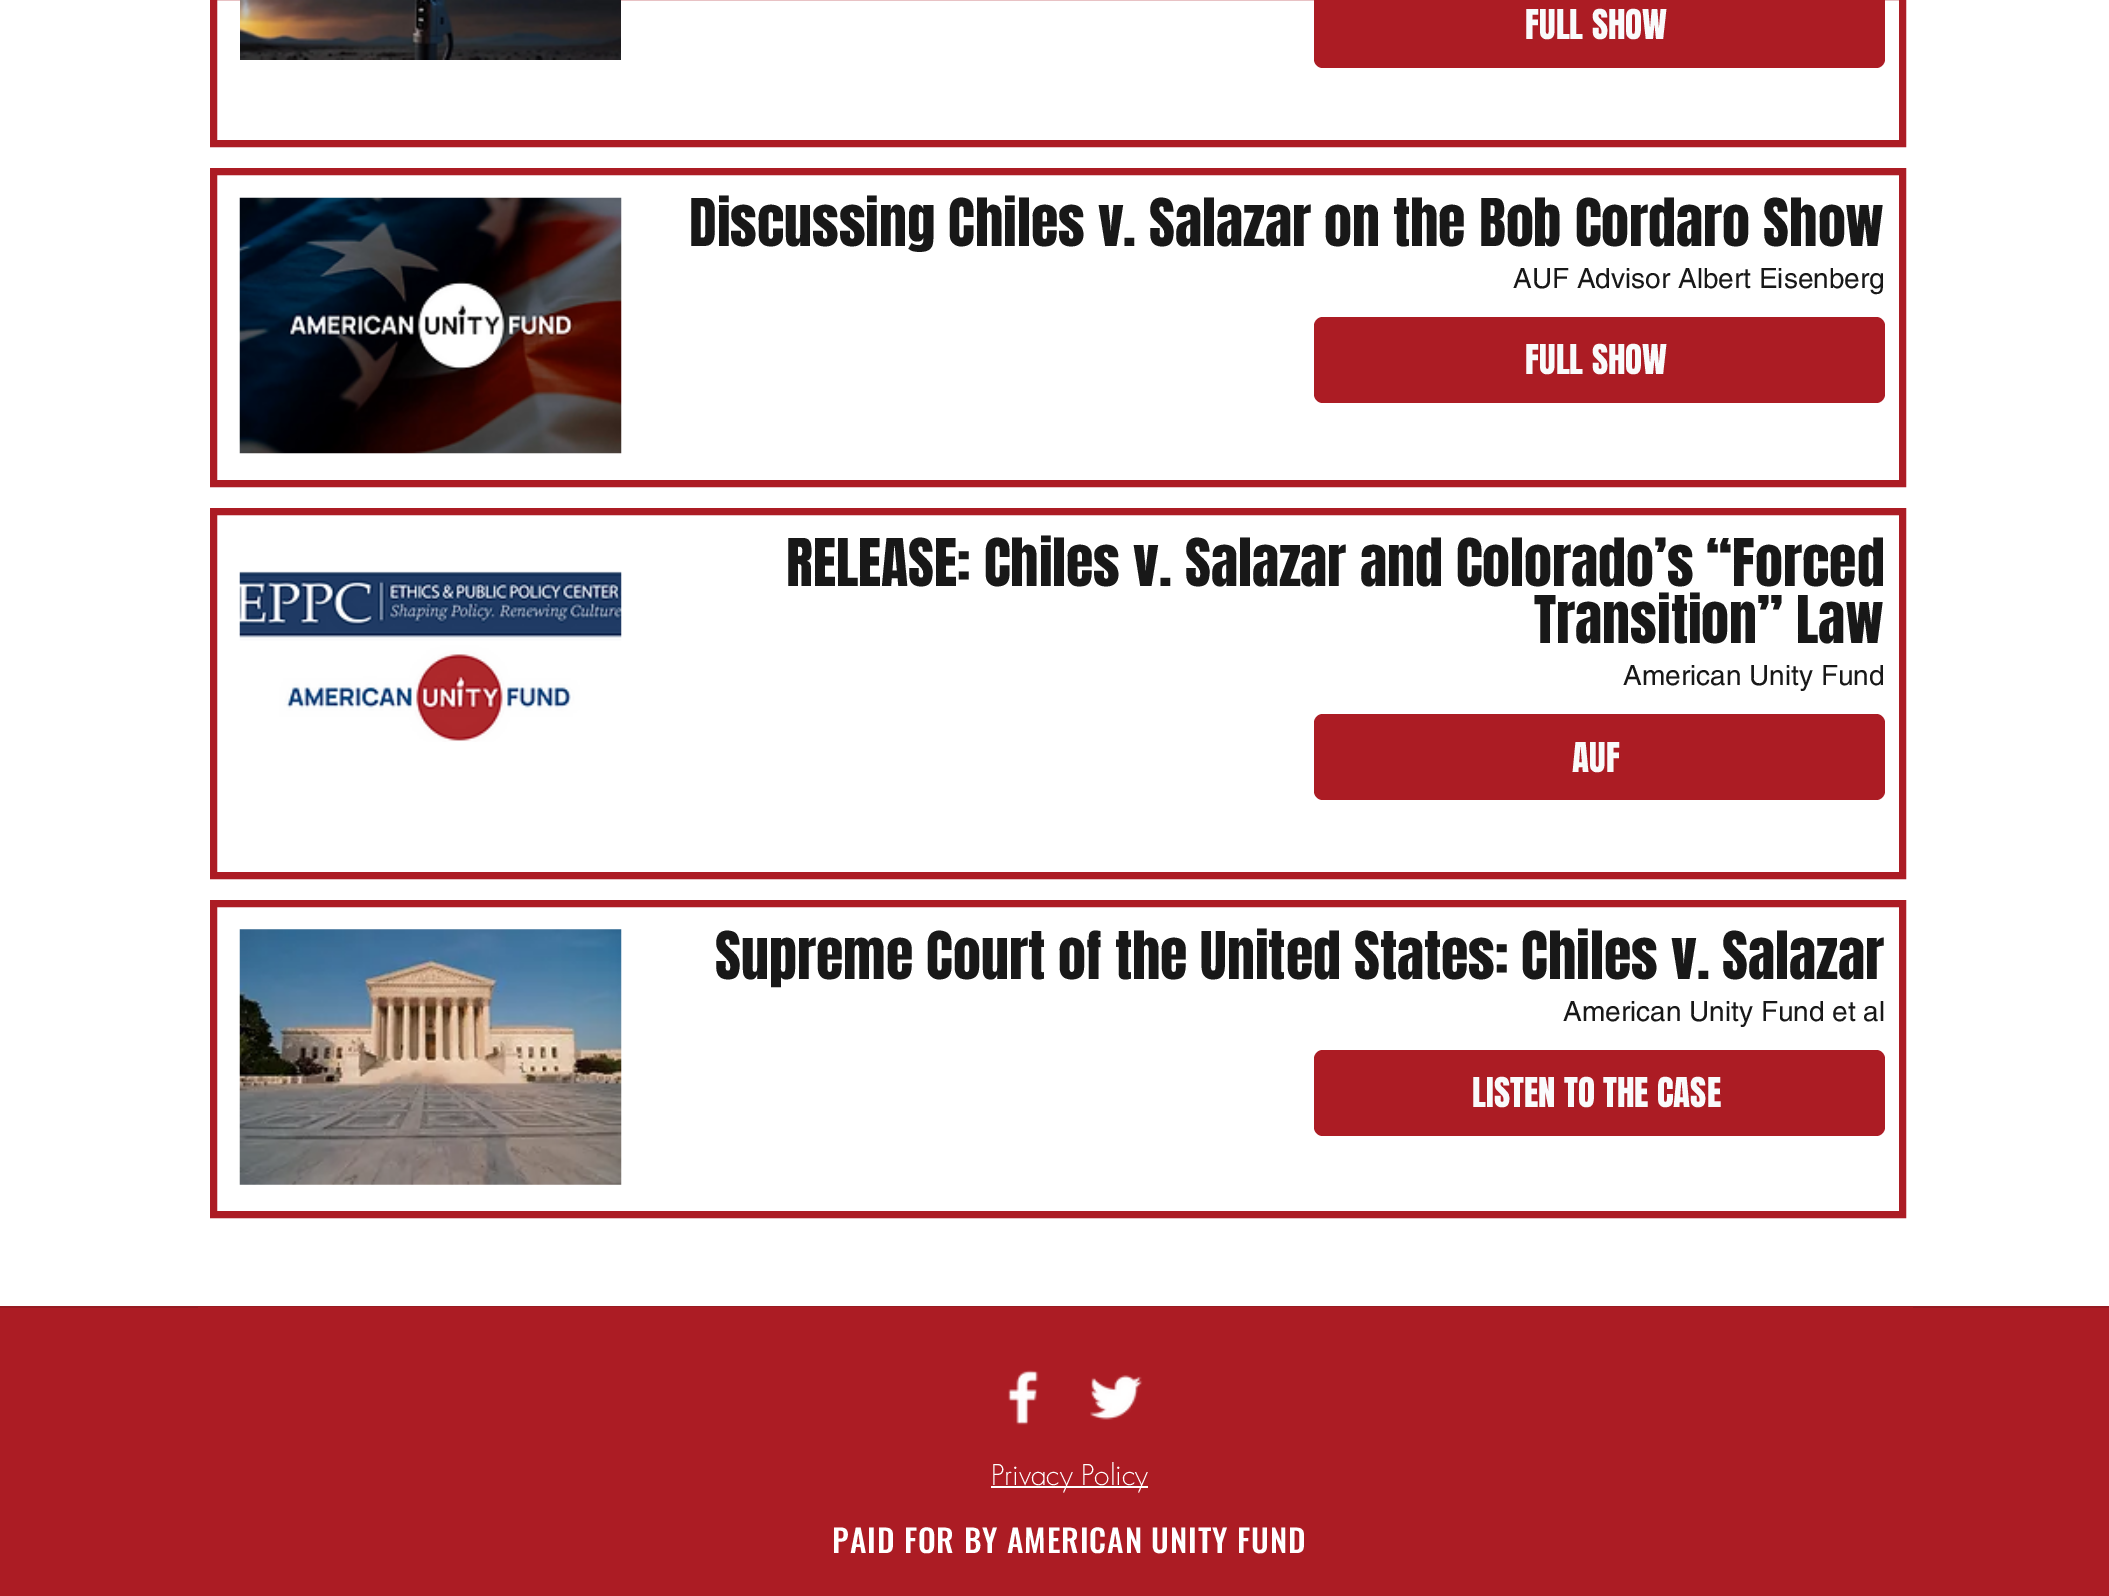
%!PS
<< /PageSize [2109 1596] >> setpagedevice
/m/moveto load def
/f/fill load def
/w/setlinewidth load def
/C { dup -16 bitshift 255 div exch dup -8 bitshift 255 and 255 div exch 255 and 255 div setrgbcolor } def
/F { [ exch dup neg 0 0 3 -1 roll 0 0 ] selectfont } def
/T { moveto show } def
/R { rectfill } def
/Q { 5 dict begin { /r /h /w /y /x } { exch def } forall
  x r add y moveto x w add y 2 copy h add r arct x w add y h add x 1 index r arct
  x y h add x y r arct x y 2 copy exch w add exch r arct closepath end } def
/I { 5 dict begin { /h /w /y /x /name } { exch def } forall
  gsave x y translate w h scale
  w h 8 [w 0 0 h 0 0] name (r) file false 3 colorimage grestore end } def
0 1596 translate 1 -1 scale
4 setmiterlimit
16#FFFFFF C
0 0 2109 1596 R
16#AC1C24 C
7 w
213.5 -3.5 1689 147 rectstroke
(1.rgb) 240 0 381 60 I
1314 -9 571 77 9 Q f
/Anton-Regular 35 F
16#F9FAFB C
(FULL SHOW) 1525 39 T
16#AC1C24 C
213.5 171.5 1689 312 rectstroke
(2.rgb) 239 197 383 257 I
/Anton-Regular 56 F
16#181818 C
(Discussing Chiles v. Salazar on the Bob Cordaro Show) 689 246 T
/helvetica-Regular 28 F
(AUF Advisor Albert Eisenberg) 1513 288 T
16#AC1C24 C
1314 317 571 86 9 Q f
/Anton-Regular 35 F
16#F9FAFB C
(FULL SHOW) 1525 374 T
16#AC1C24 C
213.5 511.5 1689 364 rectstroke
(3.rgb) 239 571 383 171 I
/Anton-Regular 56 F
16#181818 C
(RELEASE: Chiles v. Salazar and Colorado’s “Forced) 786 586 T
(Transition” Law) 1534 643 T
/helvetica-Regular 28 F
(American Unity Fund) 1623 685 T
16#AC1C24 C
1314 714 571 86 9 Q f
/Anton-Regular 35 F
16#F9FAFB C
(AUF) 1572 772 T
16#AC1C24 C
213.5 903.5 1689 311 rectstroke
(4.rgb) 239 929 383 256 I
/Anton-Regular 56 F
16#181818 C
(Supreme Court of the United States: Chiles v. Salazar) 715 979 T
/helvetica-Regular 28 F
(American Unity Fund et al) 1563 1021 T
16#AC1C24 C
1314 1050 571 86 9 Q f
/Anton-Regular 35 F
16#F9FAFB C
(LISTEN TO THE CASE) 1472 1107 T
16#AC1C24 C
0 1308 2109 288 R
16#961B22 C
0 1306 2109 2 R
16#AC1C24 C
198 1307 1715 1 R
(5.rgb) 1008 1370 31 55 I
(6.rgb) 1090 1375 53 45 I
16#FFFFFF C
991 1486 157 2 R
/futura-Light 28 F
(Privacy Policy) 991 1485 T
/Oswald-Medium 31.5 F
832 1553 m .95 0 (PAID FOR BY AMERICAN UNITY FUND) ashow
showpage
